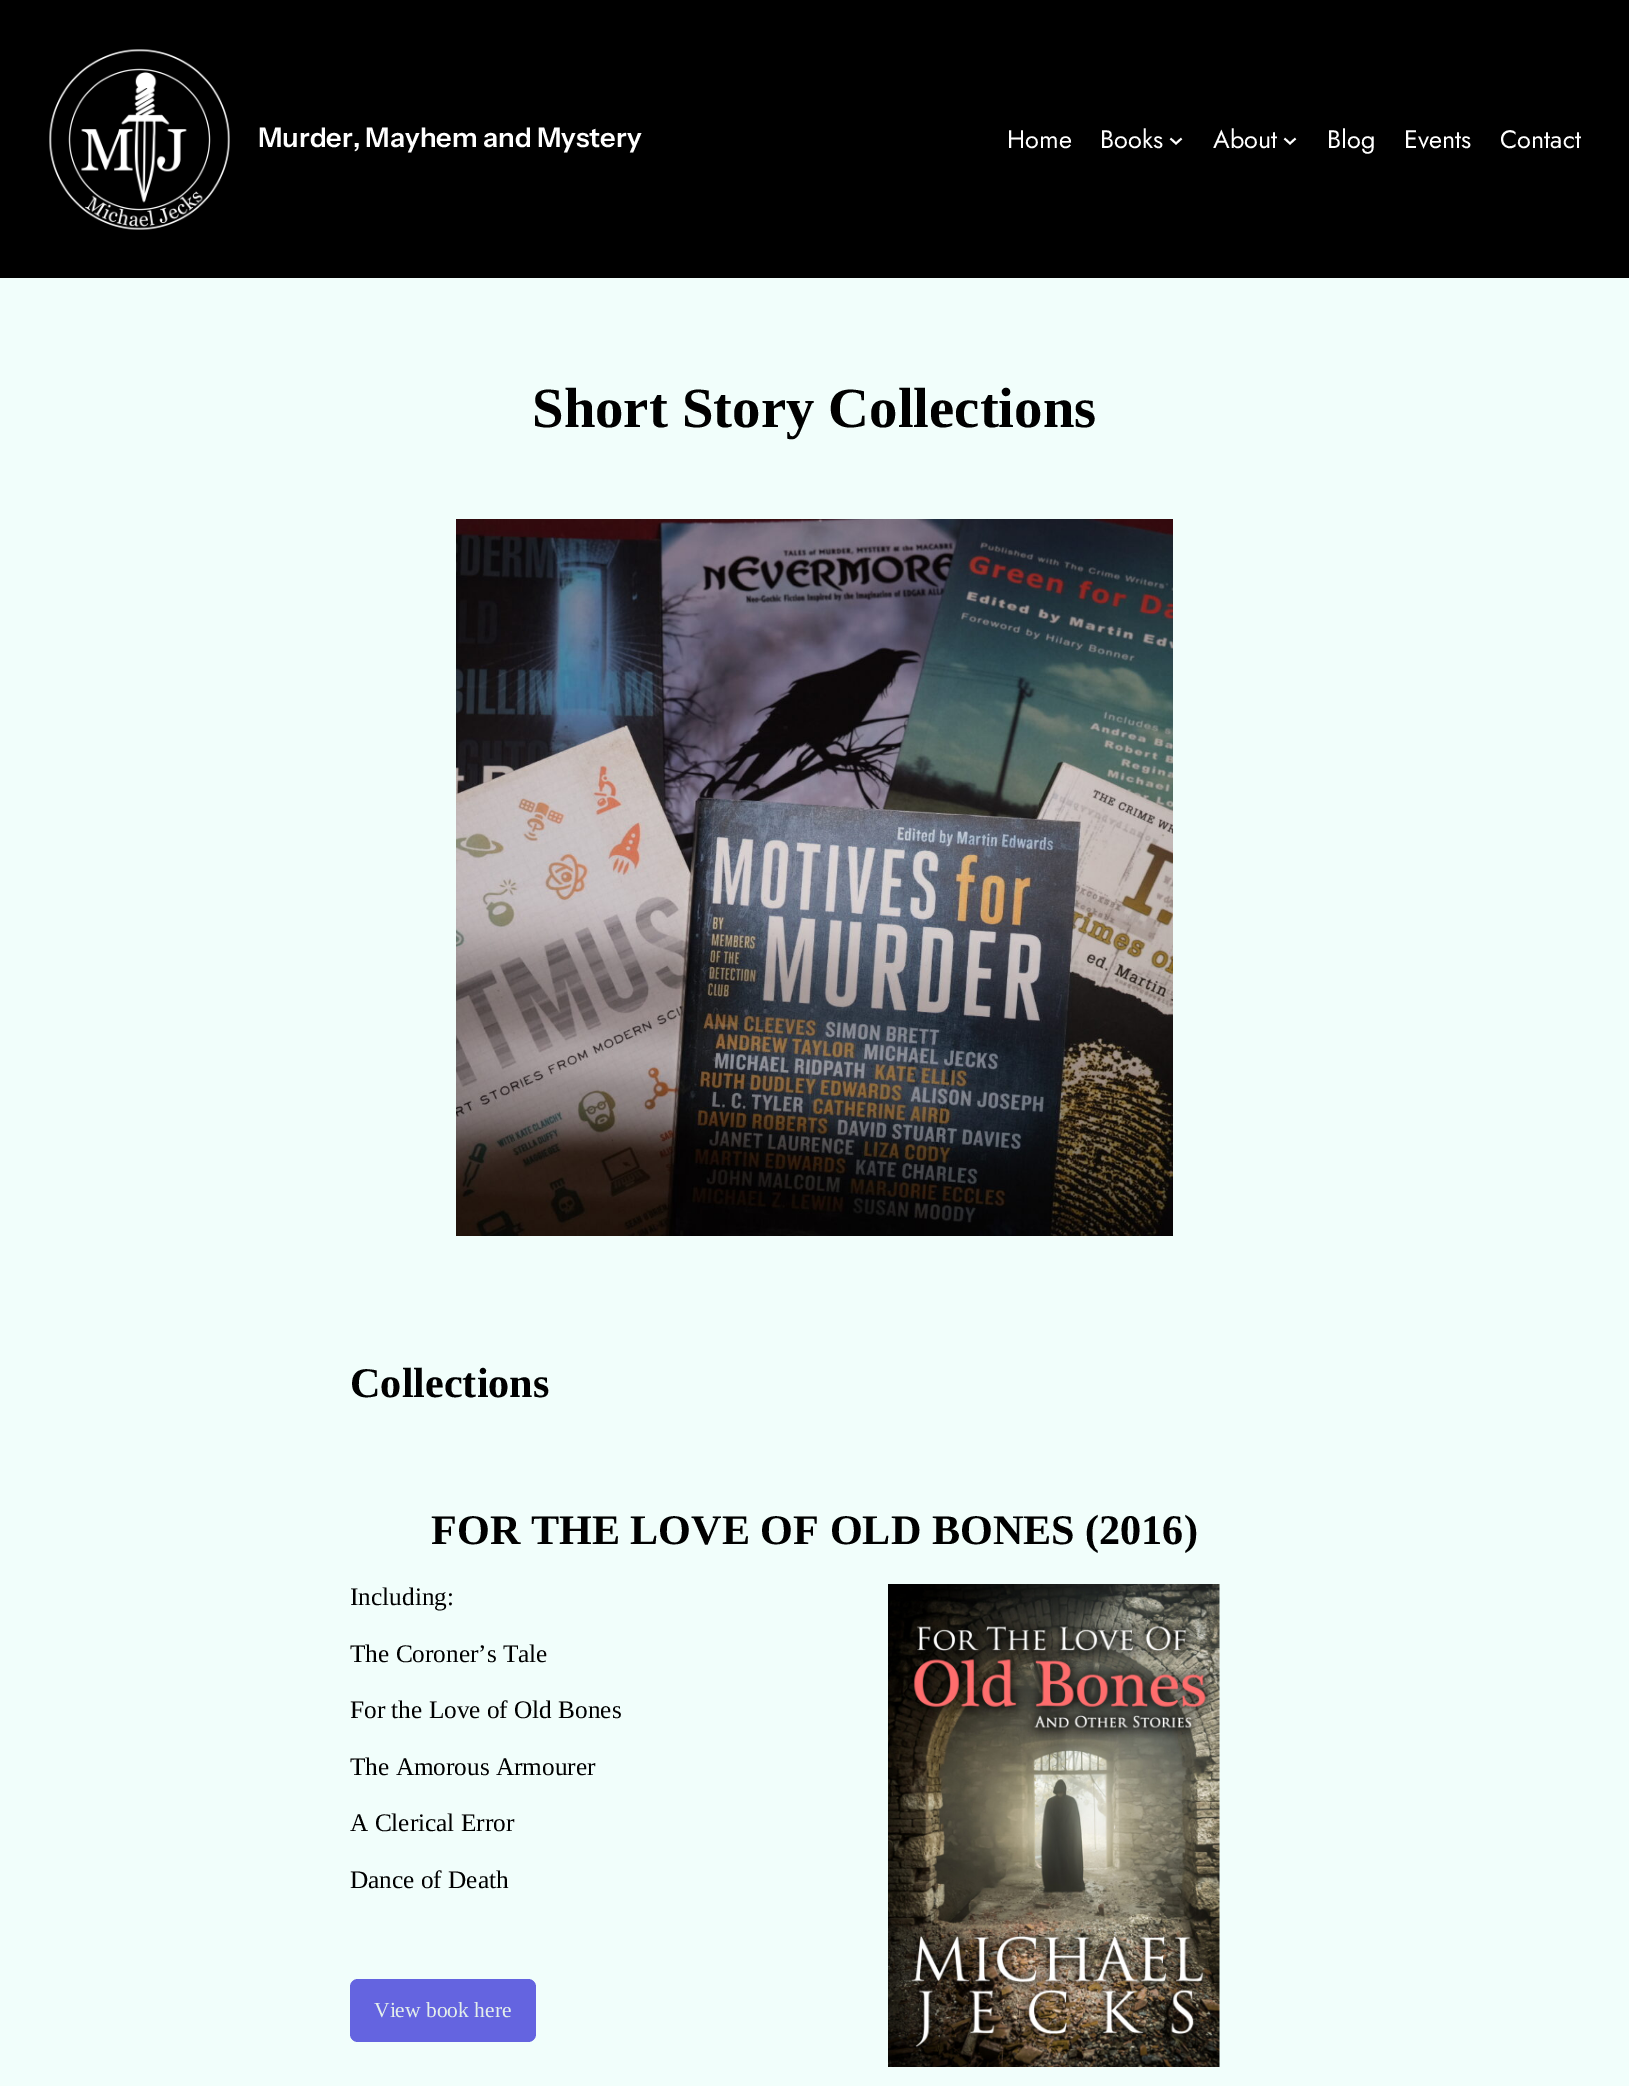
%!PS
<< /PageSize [1629 2086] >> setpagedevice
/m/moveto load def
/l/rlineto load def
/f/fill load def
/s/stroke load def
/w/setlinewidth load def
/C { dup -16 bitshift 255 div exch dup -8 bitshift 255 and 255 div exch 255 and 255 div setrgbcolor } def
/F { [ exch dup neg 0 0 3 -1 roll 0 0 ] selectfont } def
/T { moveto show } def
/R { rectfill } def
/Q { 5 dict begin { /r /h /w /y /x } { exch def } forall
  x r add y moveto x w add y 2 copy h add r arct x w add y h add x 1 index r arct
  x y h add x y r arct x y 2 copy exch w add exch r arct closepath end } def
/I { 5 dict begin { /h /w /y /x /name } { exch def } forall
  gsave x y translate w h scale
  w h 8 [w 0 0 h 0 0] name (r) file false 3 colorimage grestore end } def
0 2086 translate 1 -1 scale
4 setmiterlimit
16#F1FEFB C
0 0 1629 2086 R
16#000000 C
0 0 1629 278 R
(1.rgb) 49 49 181 181 I
/InstrumentSans-SemiBold 27.25 F
16#FFFFFF C
(Murder, Mayhem and Mystery) 258 147 T
/Jost-Regular 25.25 F
(Home) 1007 148 T
(Books) 1100 148 T
1.9 w
1170.5 138.5 m 5.5 5 l 5.5 -5 l s
(About) 1213 148 T
1284.5 138.5 m 5.5 5 l 5.5 -5 l s
(Blog) 1327 148 T
(Events) 1404 148 T
(Contact) 1500 148 T
/LiberationSerif-Bold 56.75 F
16#000000 C
(Short Story Collections) 532 427 T
(2.rgb) 456 519 717 717 I
/LiberationSerif-Bold 42.2 F
(Collections) 350 1397 T
(FOR THE LOVE OF OLD BONES \(2016\)) 431 1544 T
/LiberationSerif-Regular 25.25 F
(Including:) 350 1605 T
(The Coroner’s Tale) 350 1662 T
(For the Love of Old Bones) 350 1718 T
(The Amorous Armourer) 350 1775 T
(A Clerical Error) 350 1831 T
(Dance of Death) 350 1888 T
16#6464E0 C
350 1979 186 63 8 Q f
/LiberationSerif-Regular 21.5 F
16#E4EFEB C
(View book here) 374 2017 T
(3.rgb) 888 1584 332 483 I
showpage
